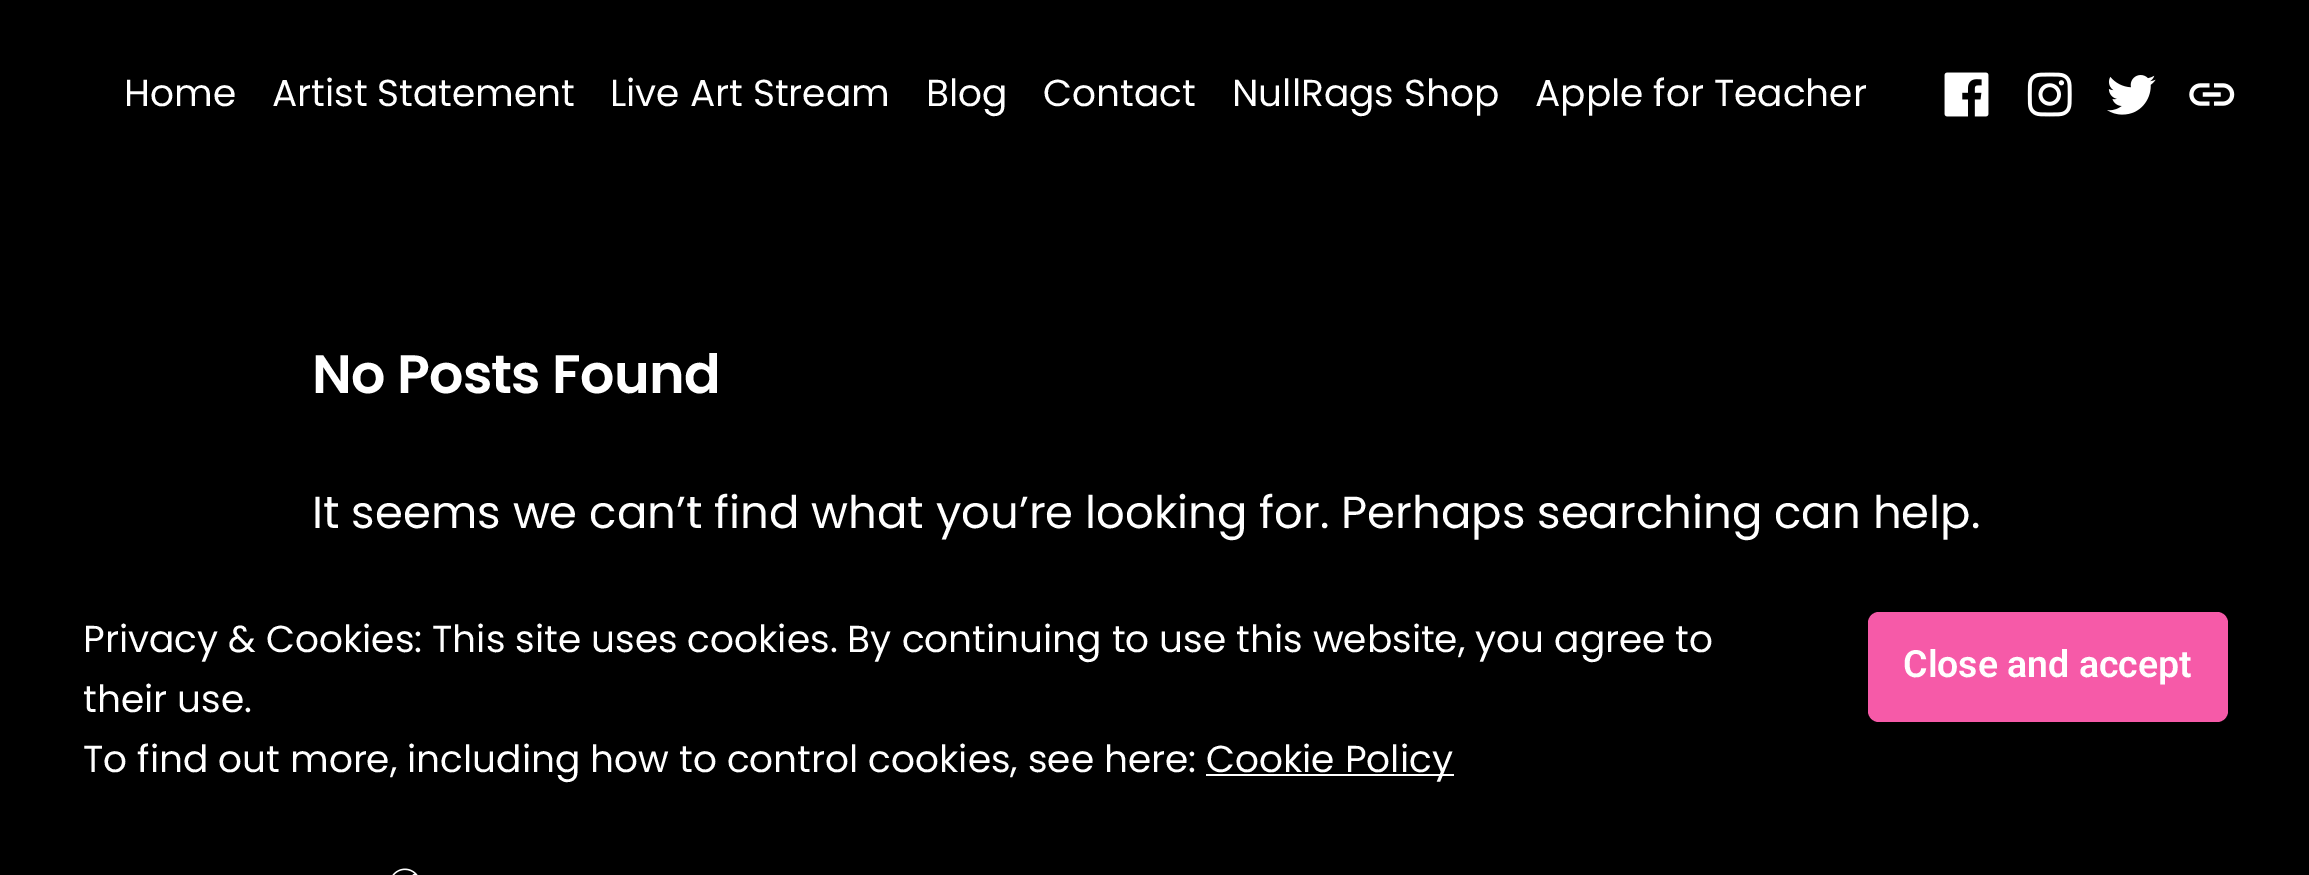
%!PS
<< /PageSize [2309 875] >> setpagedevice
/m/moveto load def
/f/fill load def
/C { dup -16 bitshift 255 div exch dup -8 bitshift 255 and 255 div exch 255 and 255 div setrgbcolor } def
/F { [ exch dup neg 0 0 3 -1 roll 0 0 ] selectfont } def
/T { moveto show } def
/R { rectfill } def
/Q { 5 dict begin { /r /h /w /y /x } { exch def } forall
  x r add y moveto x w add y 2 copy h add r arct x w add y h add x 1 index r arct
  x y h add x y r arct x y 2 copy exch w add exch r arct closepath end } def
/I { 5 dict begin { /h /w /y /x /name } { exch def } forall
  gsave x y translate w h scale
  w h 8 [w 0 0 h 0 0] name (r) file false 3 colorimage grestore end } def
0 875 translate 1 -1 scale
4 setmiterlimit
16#000000 C
0 0 2309 875 R
/Poppins-Regular 37.5 F
16#FFFFFF C
(Home) 124 106 T
(Artist Statement) 272 106 T
(Live Art Stream) 610 106 T
(Blog) 926 106 T
(Contact) 1043 106 T
(NullRags Shop) 1232 106 T
(Apple for Teacher) 1535 106 T
(1.rgb) 1944 72 45 45 I
(2.rgb) 2027 72 45 45 I
(3.rgb) 2107 75 49 40 I
(4.rgb) 2189 83 46 23 I
/Poppins-SemiBold 54 F
312 393 m -.75 0 (No Posts Found) ashow
/Poppins-Regular 45 F
(It seems we can’t find what you’re looking for. Perhaps searching can help.) 312 528 T
(5.rgb) 392 868 26 7 I
/Poppins-Regular 37.5 F
(Privacy & Cookies: This site uses cookies. By continuing to use this website, you agree to) 83 652 T
16#F65AA8 C
1868 612 360 110 11 Q f
/Roboto-SemiBold 37.5 F
16#FFFFFF C
(Close and accept) 1903 677 T
/Poppins-Regular 37.5 F
(their use.) 83 712 T
(To find out more, including how to control cookies, see here:) 83 772 T
1206 774 248 2 R
(Cookie Policy) 1206 772 T
showpage
